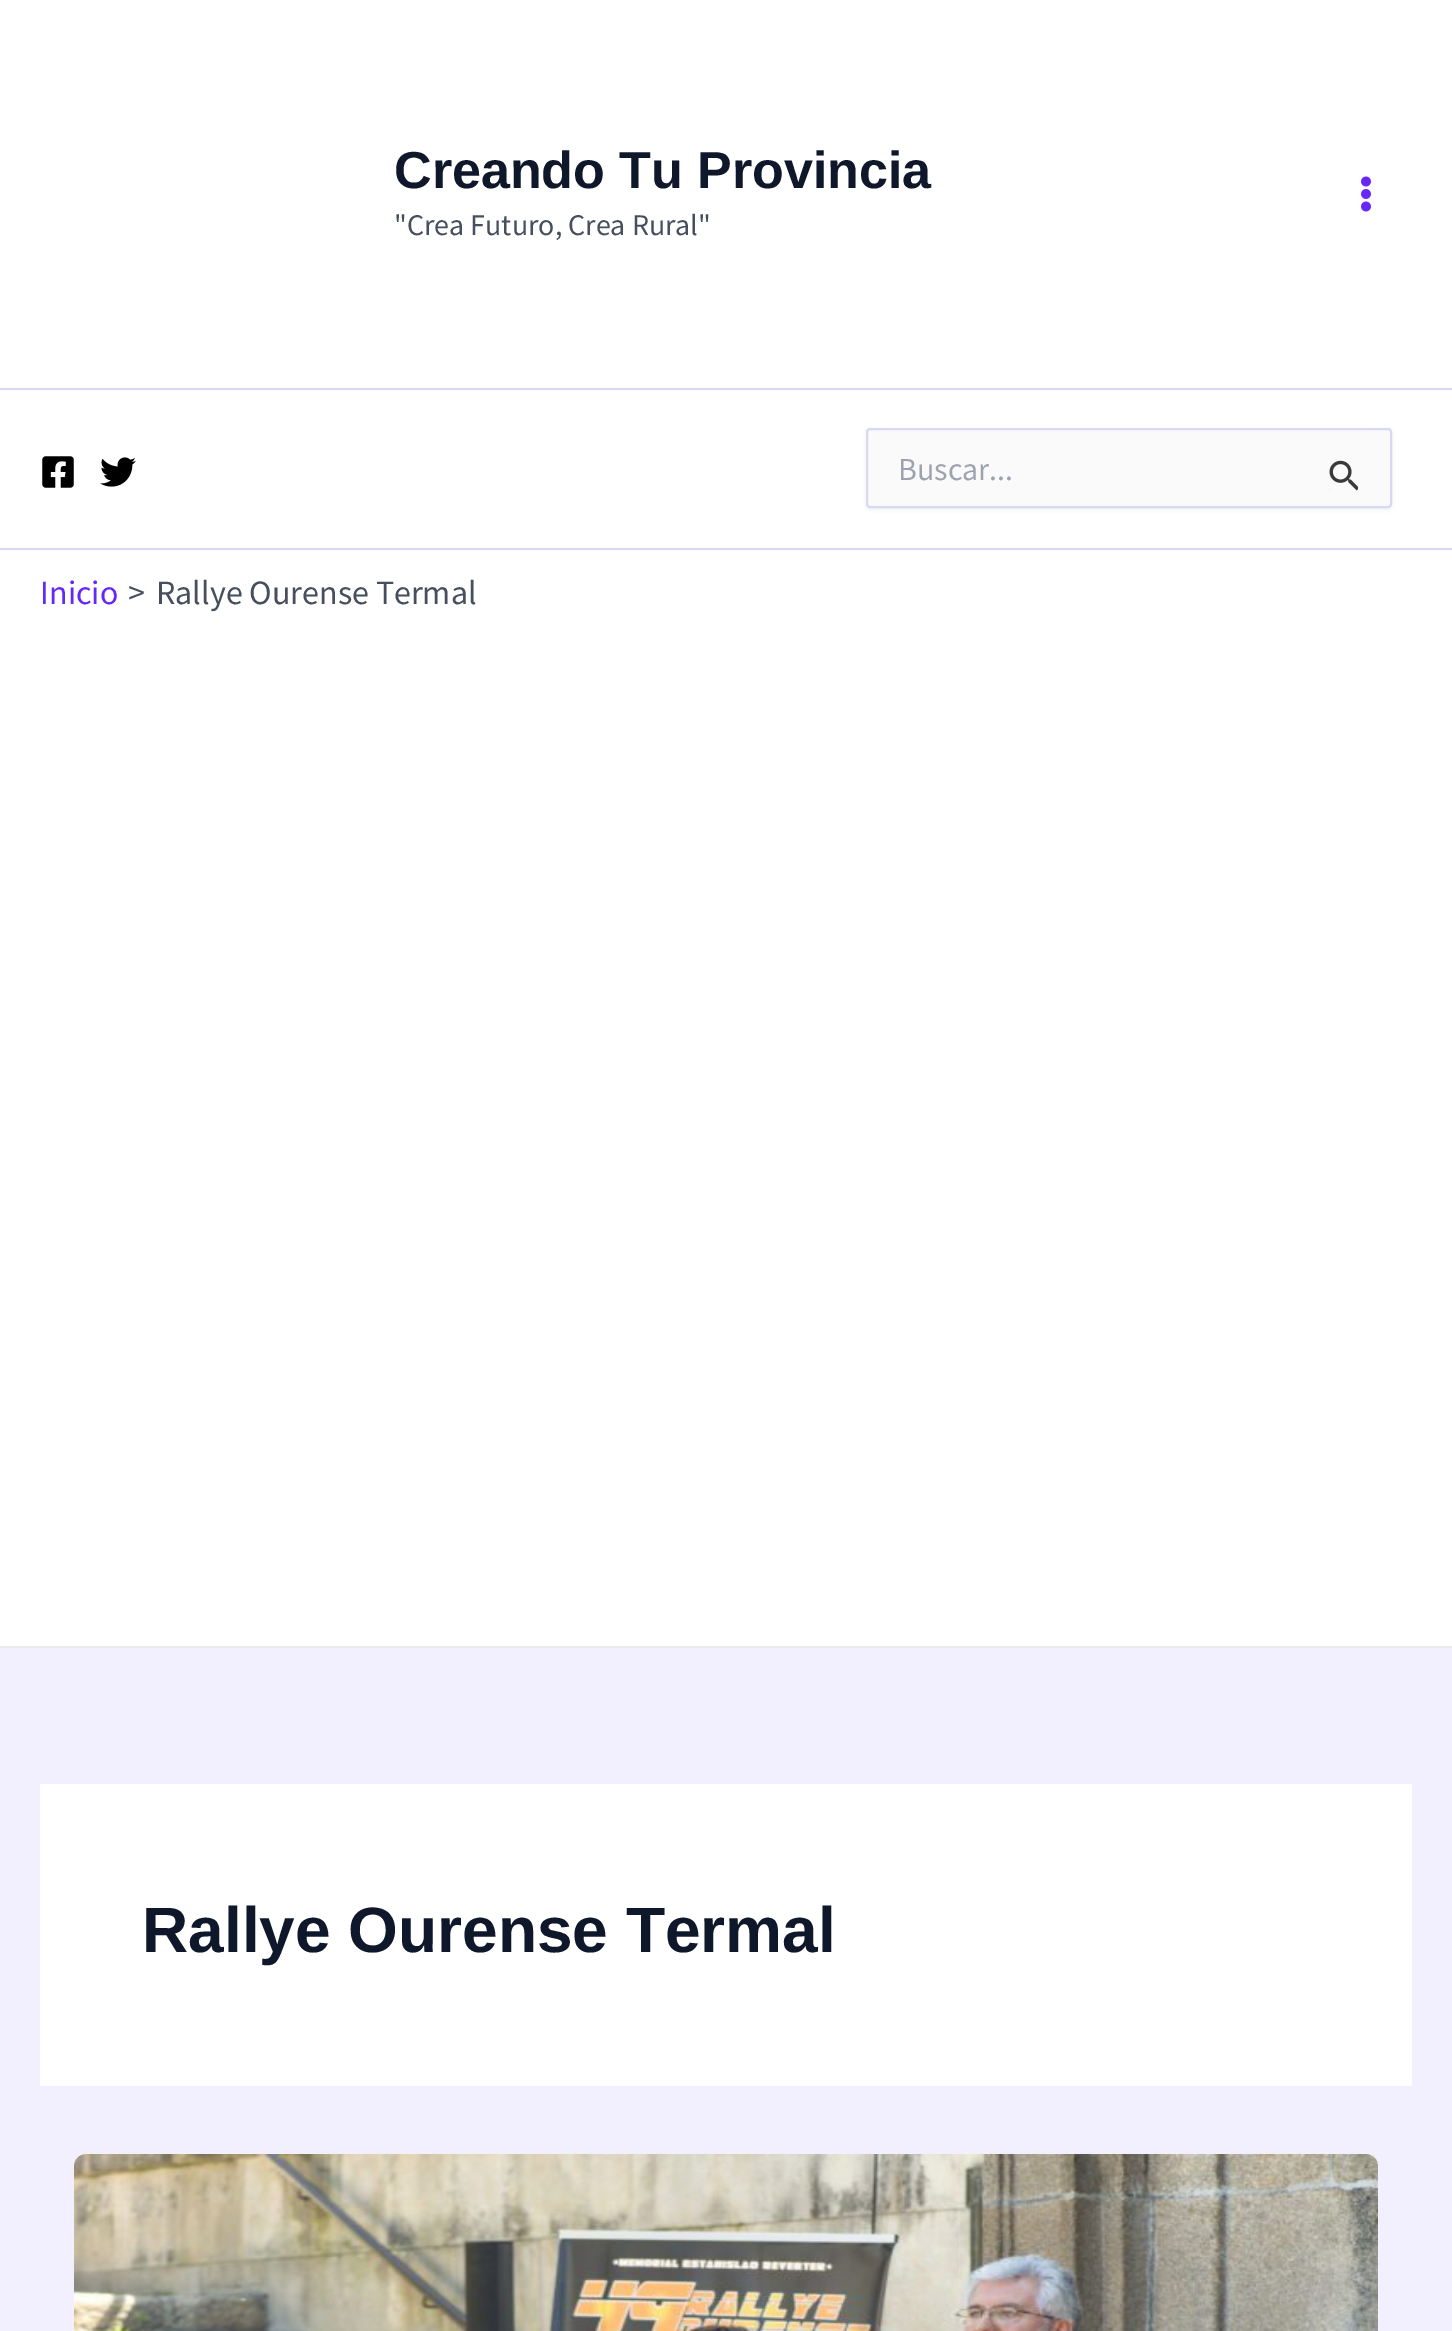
%!PS
<< /PageSize [1452 2331] /PageUsesTransparency true >> setpagedevice
/f/fill load def
/s/stroke load def
/q/gsave load def
/Q_/grestore load def
/w/setlinewidth load def
/C { dup -16 bitshift 255 div exch dup -8 bitshift 255 and 255 div exch 255 and 255 div setrgbcolor } def
/F { [ exch dup neg 0 0 3 -1 roll 0 0 ] selectfont } def
/T { moveto show } def
/R { rectfill } def
/A { dup .setfillconstantalpha .setstrokeconstantalpha } def
/Q { 5 dict begin { /r /h /w /y /x } { exch def } forall
  x r add y moveto x w add y 2 copy h add r arct x w add y h add x 1 index r arct
  x y h add x y r arct x y 2 copy exch w add exch r arct closepath end } def
/S { 12 dict begin { /a /b /q /h /w /y /x } { exch def } forall gsave /was 0 def
  9 -2 -9 { dup b mul 4 div /e exch def 1 sub .425 mul 2.718 exch exp 1 add a .99 .min exch div /now exch def
    1 1 now sub 1 was sub div sub A /was now def
    w h .min e 2 mul add 0 gt { x e sub y e sub w e 2 mul add h e 2 mul add
      q e add b .6 mul add w h .min 2 div e add .min 0 .max Q fill } if } for grestore end } def
/I { 5 dict begin { /h /w /y /x /name } { exch def } forall
  gsave x y translate w h scale
  w h 8 [w 0 0 h 0 0] name (r) file false 3 colorimage grestore end } def
0 .pushpdf14devicefilter
0 2331 translate 1 -1 scale
4 setmiterlimit
16#F2F0FE C
0 0 1452 2331 R
16#FFFFFF C
0 0 1452 388 R
16#D8D8F5 C
0 388 1452 2 R
/LiberationSans-Bold 52 F
16#0F172A C
(Creando Tu Provincia) 394 188 T
/SourceSansPro-Regular 30 F
16#454F5E C
("Crea Futuro, Crea Rural") 394 235 T
(1.rgb) 1361 176 10 36 I
16#FFFFFF C
0 390 1452 158 R
16#D8D8F5 C
0 548 1452 2 R
(2.rgb) 42 456 32 32 I
(3.rgb) 100 457 36 30 I
16#000000 C
866 430 526 80 4 2 .05 S
16#FAFAFA C
867 429 524 78 3 Q q f Q_
16#D8D8F5 C
2 w
s
/SourceSansPro-Regular 32 F
16#9CA3AF C
(Buscar...) 898 480 T
(4.rgb) 1329 460 29 31 I
16#FFFFFF C
0 550 1452 1096 R
16#EAEAEA C
0 1646 1452 2 R
/SourceSansPro-Regular 34 F
16#6528F7 C
(Inicio) 40 604 T
16#454F5E C
(>) 128 604 T
(Rallye Ourense Termal) 156 604 T
16#FFFFFF C
40 1784 1372 302 R
/LiberationSans-Bold 64 F
16#0F172A C
(Rallye Ourense Termal) 142 1952 T
(5.rgb) 74 2154 1304 177 I
.poppdf14devicefilter showpage
